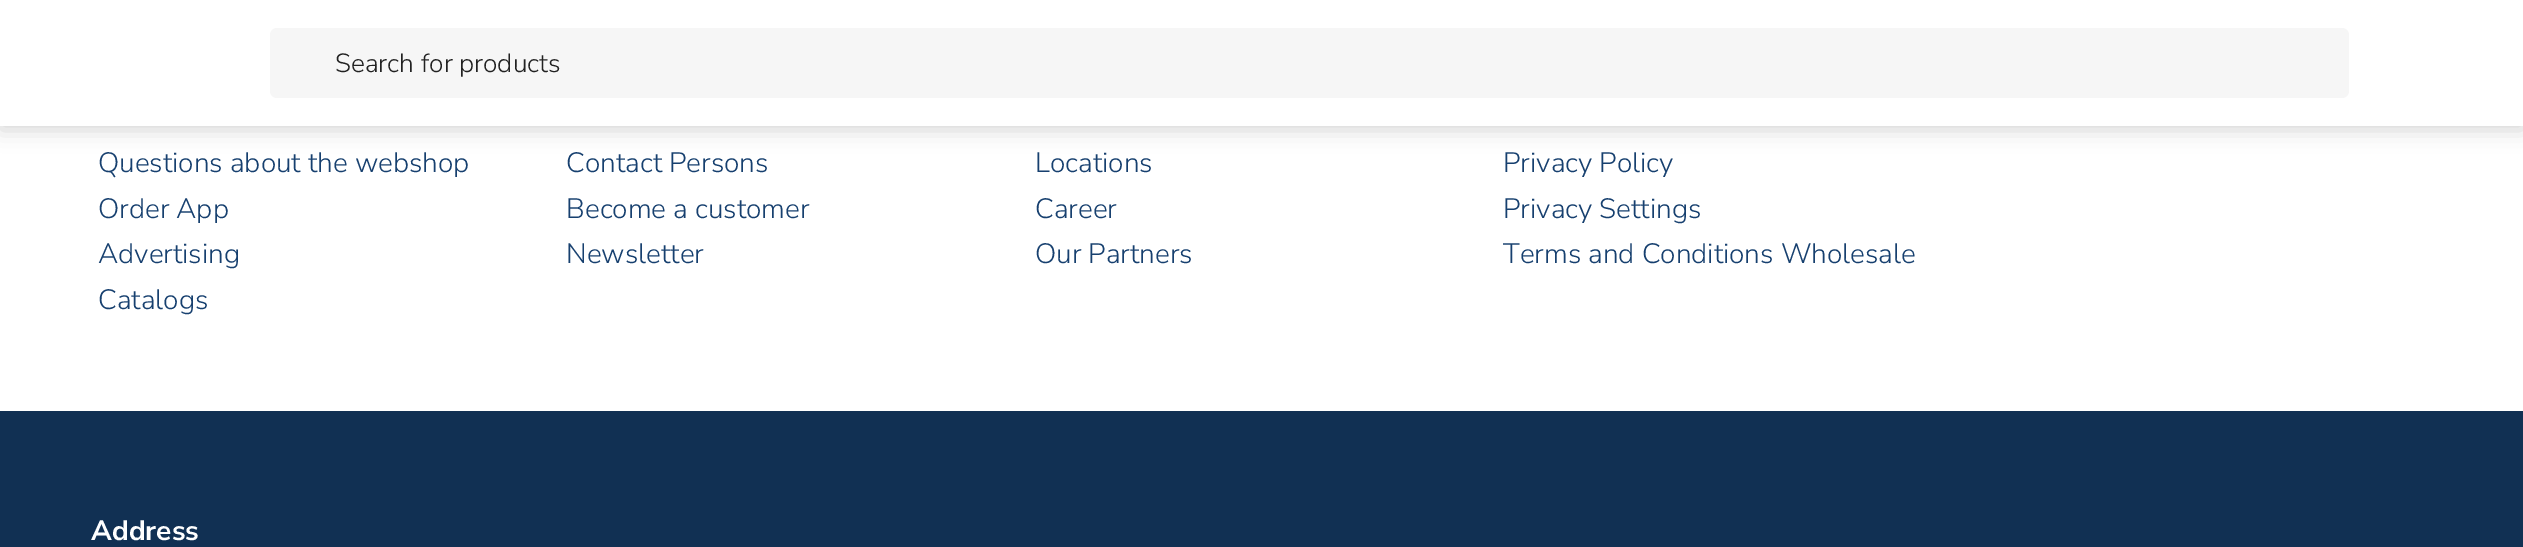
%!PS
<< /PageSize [2523 547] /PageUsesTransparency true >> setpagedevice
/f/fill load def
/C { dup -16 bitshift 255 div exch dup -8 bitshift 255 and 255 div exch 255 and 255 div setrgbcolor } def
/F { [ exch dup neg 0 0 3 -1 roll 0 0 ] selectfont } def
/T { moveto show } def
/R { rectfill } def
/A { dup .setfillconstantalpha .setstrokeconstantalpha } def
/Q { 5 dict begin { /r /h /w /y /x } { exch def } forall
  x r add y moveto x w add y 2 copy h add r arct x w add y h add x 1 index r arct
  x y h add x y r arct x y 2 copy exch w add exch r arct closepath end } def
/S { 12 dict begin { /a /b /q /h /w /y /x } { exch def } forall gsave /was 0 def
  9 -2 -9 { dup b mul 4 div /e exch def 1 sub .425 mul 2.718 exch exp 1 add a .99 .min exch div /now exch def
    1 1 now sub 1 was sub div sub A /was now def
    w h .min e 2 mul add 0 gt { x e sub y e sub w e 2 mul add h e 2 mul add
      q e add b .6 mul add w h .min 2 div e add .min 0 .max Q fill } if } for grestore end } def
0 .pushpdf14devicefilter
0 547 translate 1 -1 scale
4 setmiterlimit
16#FFFFFF C
0 0 2523 547 R
16#000000 C
0 4 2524 126 0 10.5 .16 S
16#FFFFFF C
0 0 2523 126 R
16#F6F6F6 C
270 28 2079 70 7 Q f
/NunitoSans-Light 26.25 F
16#222222 C
(Search for products) 335 72 T
/NunitoSans-Light 28 F
16#17406F C
(Questions about the webshop) 98 172 T
(Order App) 98 218 T
(Advertising) 98 263 T
(Catalogs) 98 309 T
(Contact Persons) 566 172 T
(Become a customer) 566 218 T
(Newsletter) 566 263 T
(Locations) 1035 172 T
(Career) 1035 218 T
(Our Partners) 1035 263 T
(Privacy Policy) 1503 172 T
(Privacy Settings) 1503 218 T
(Terms and Conditions Wholesale) 1503 263 T
16#113053 C
0 411 2523 136 R
/NunitoSans-Bold 28 F
16#FFFFFF C
(Address) 91 540 T
.poppdf14devicefilter showpage
